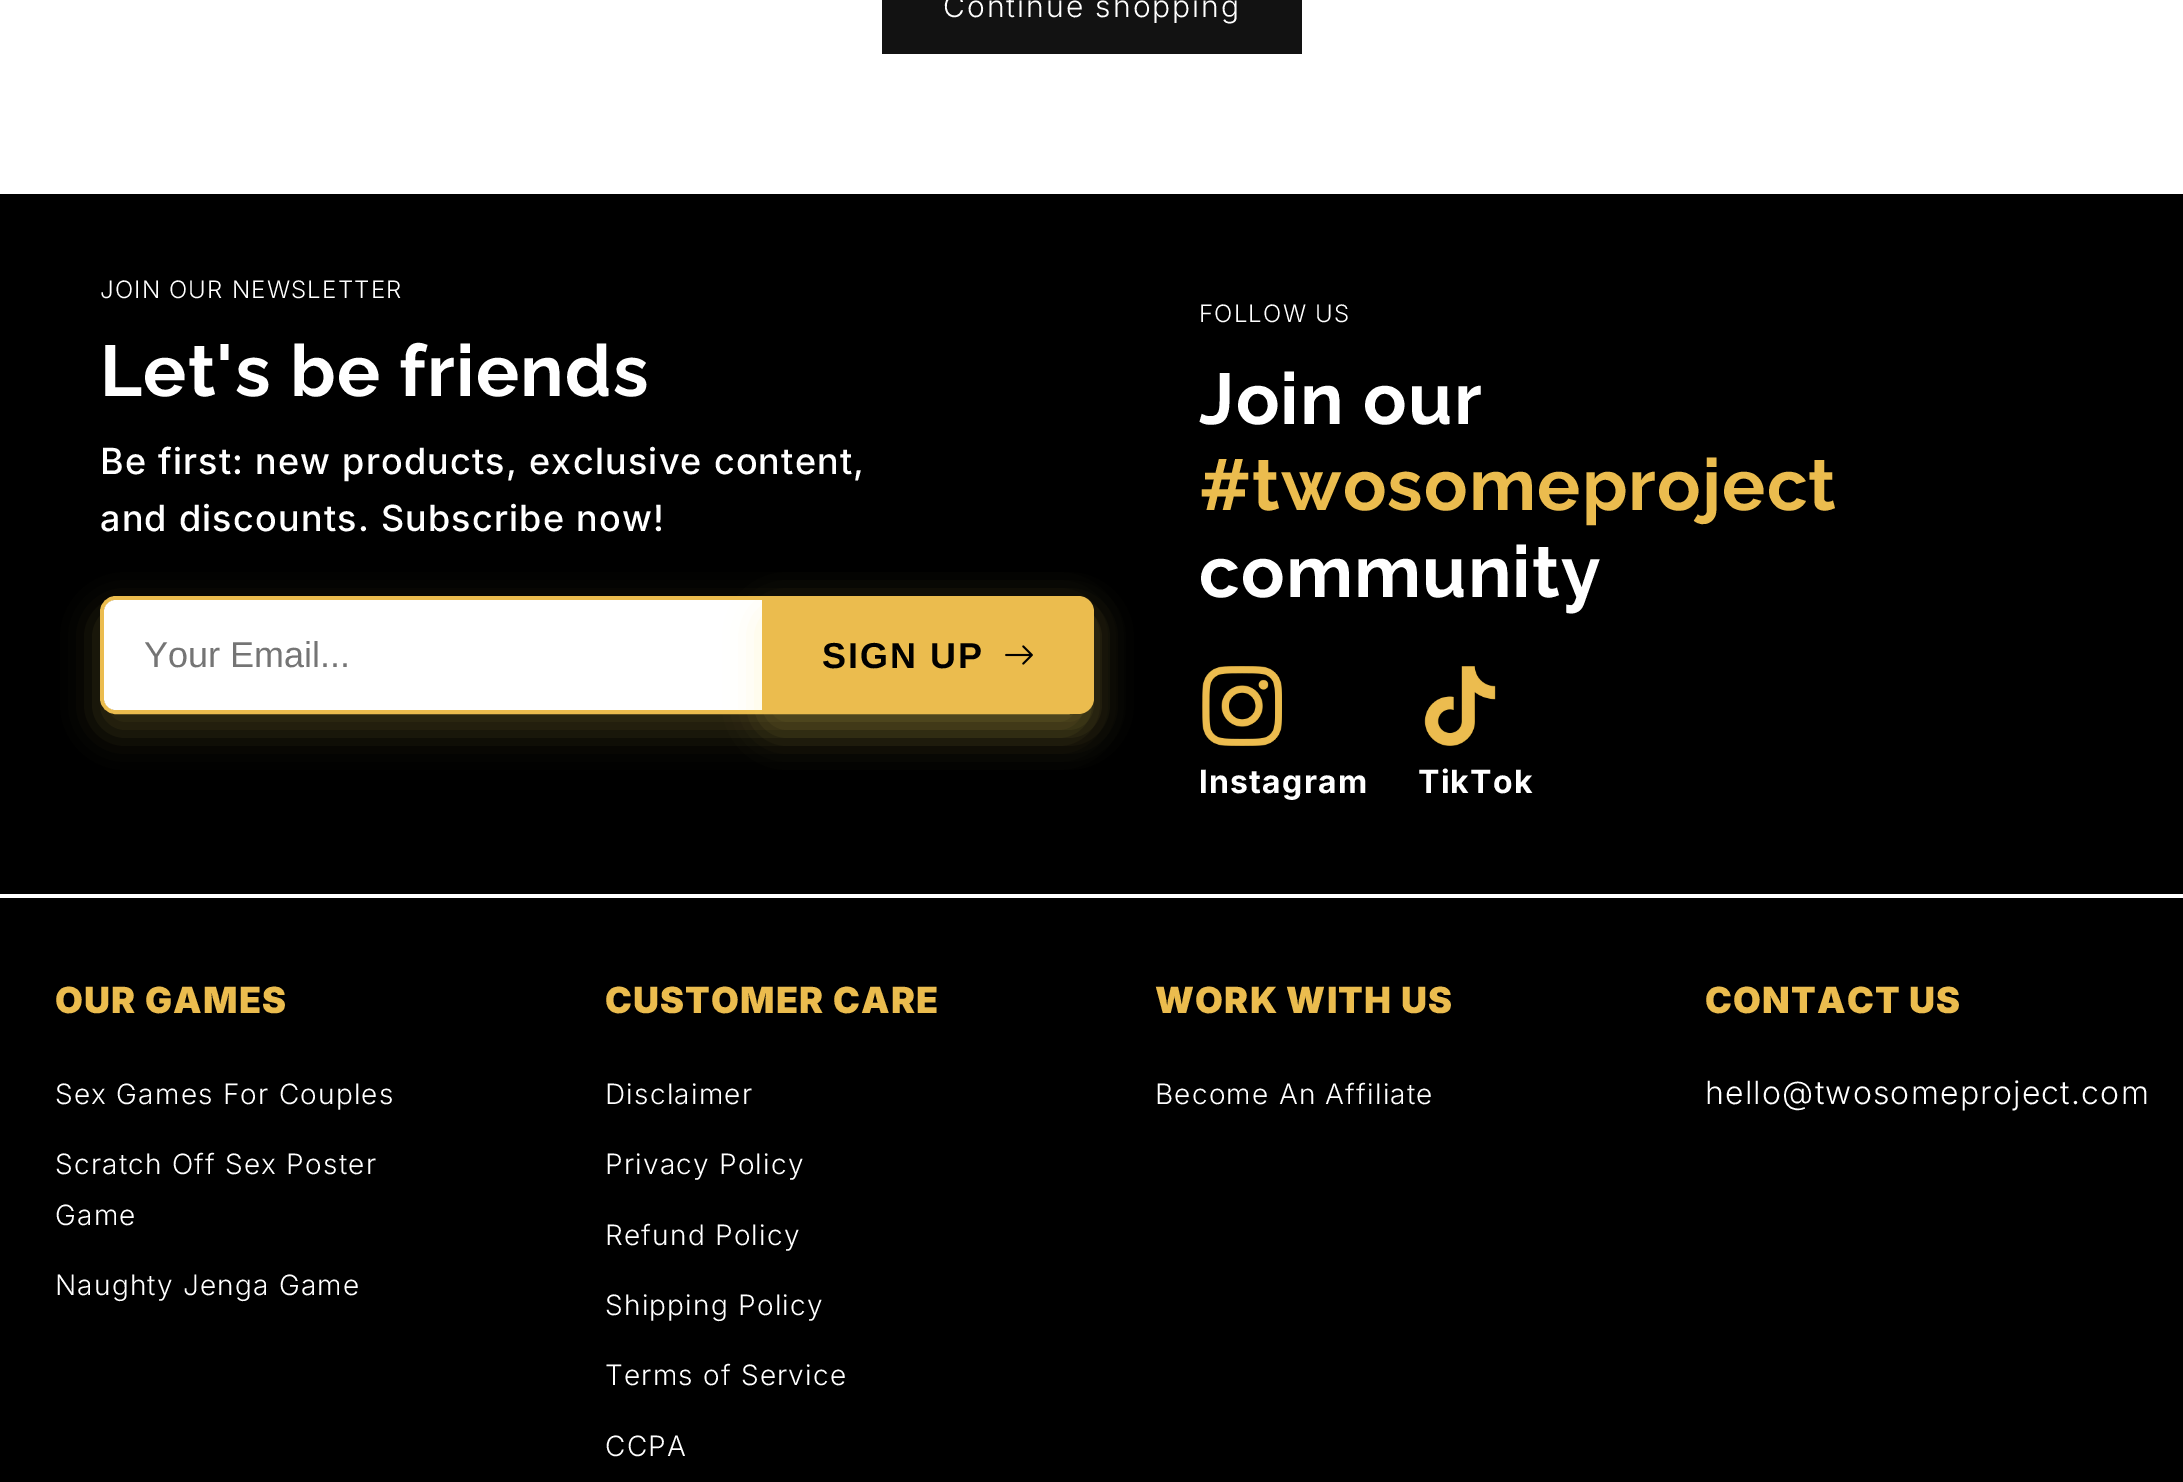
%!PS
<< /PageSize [2183 1482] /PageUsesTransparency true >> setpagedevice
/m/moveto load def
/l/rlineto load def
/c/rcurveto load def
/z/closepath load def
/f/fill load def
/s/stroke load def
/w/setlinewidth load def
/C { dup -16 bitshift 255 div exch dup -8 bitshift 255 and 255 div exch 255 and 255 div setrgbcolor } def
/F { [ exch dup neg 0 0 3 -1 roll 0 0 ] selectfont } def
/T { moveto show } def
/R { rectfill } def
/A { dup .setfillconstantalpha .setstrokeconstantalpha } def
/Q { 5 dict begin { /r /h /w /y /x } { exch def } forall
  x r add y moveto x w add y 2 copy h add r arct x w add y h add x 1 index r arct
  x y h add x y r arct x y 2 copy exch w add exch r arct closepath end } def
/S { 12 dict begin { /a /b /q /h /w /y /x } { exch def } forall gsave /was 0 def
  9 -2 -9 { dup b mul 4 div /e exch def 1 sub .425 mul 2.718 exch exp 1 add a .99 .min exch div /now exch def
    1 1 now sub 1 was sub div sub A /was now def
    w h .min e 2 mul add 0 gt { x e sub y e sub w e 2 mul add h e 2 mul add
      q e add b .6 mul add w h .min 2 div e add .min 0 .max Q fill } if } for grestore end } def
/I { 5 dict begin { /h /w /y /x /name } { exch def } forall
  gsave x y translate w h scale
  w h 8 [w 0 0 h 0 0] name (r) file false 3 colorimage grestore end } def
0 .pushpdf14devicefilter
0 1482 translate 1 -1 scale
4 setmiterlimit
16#FFFFFF C
0 0 2183 1482 R
16#121212 C
882 0 420 54 R
/Inter-Light 30 F
16#FFFFFF C
943 17 m 2 0 (Continue shopping) ashow
16#000000 C
0 194 2183 700 R
/Inter-Light 24 F
16#FFFFFF C
100 298 m 1.2 0 (JOIN OUR NEWSLETTER) ashow
/Raleway-Bold 72 F
100 396 m 1.2 0 (Let's be friends) ashow
/Inter-Medium 36 F
100 474 m 1.2 0 (Be first: new products, exclusive content,) ashow
100 531 m 1.2 0 (and discounts. Subscribe now!) ashow
16#F6DC5B C
96 608 992 126 20 16 .2 S
16#EBBC4E C
4 w
102 598 980 114 14 Q s
16#FFFFFF C
104 600 976 110 12 Q f
/LiberationSans-Regular 36 F
16#757575 C
(Your Email...) 144 667 T
16#F6DC5B C
758 608 340 126 20 16 .2 S
16#EBBC4E C
762 596 m 316 0 l 9 0 16 7 16 16 c 0 86 l 0 9 -7 16 -16 16 c -316 0 l z f
/LiberationSans-Bold 36 F
16#000000 C
822 668 m 2 0 (SIGN UP) ashow
(1.rgb) 1005 645 28 20 I
/Inter-Light 24 F
16#FFFFFF C
1199 322 m 1.2 0 (FOLLOW US) ashow
/Raleway-Bold 72 F
1199 424 m 1.2 0 (Join our) ashow
16#EBBC4E C
1199 510 m 1.2 0 (#twosomeproject) ashow
16#FFFFFF C
1199 597 m 1.2 0 (community) ashow
(2.rgb) 1202 666 80 80 I
/Inter-Bold 32 F
1199 793 m 1.2 0 (Instagram) ashow
(3.rgb) 1424 666 72 80 I
1418 793 m 1.2 0 (TikTok) ashow
16#000000 C
0 898 2183 584 R
/Inter-Black 36 F
16#EBBC4E C
55 1013 m 1.2 0 (OUR GAMES) ashow
/Inter-Light 28 F
16#FFFFFF C
55 1104 m 1.2 0 (Sex Games For Couples) ashow
55 1174 m 1.2 0 (Scratch Off Sex Poster) ashow
55 1225 m 1.2 0 (Game) ashow
55 1295 m 1.2 0 (Naughty Jenga Game) ashow
/Inter-Black 36 F
16#EBBC4E C
605 1013 m 1.2 0 (CUSTOMER CARE) ashow
/Inter-Light 28 F
16#FFFFFF C
605 1104 m 1.2 0 (Disclaimer) ashow
605 1174 m 1.2 0 (Privacy Policy) ashow
605 1245 m 1.2 0 (Refund Policy) ashow
605 1315 m 1.2 0 (Shipping Policy) ashow
605 1385 m 1.2 0 (Terms of Service) ashow
605 1456 m 1.2 0 (CCPA) ashow
/Inter-Black 36 F
16#EBBC4E C
1155 1013 m 1.2 0 (WORK WITH US) ashow
/Inter-Light 28 F
16#FFFFFF C
1155 1104 m 1.2 0 (Become An Affiliate) ashow
/Inter-Black 36 F
16#EBBC4E C
1705 1013 m 1.2 0 (CONTACT US) ashow
/Inter-Light 32 F
16#FFFFFF C
1705 1104 m 1.2 0 (hello@twosomeproject.com) ashow
.poppdf14devicefilter showpage
